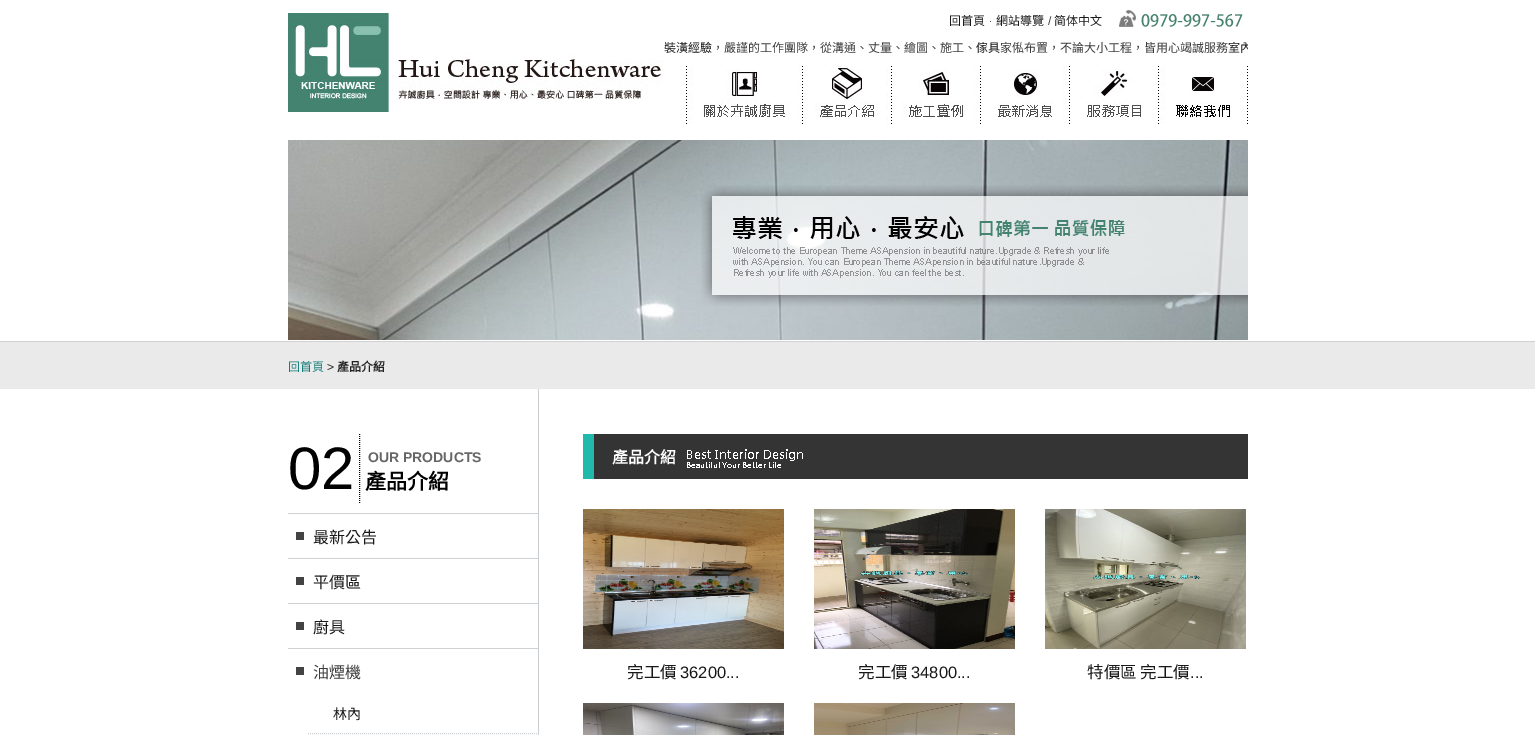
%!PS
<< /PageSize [1535 735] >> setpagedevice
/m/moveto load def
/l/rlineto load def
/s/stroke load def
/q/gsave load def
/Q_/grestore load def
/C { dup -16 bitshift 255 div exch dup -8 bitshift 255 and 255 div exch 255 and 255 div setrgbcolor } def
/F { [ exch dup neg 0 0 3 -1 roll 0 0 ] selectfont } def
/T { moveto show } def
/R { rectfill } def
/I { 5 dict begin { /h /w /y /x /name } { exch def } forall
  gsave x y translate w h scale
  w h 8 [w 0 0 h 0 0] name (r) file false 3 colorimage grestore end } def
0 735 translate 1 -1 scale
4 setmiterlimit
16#FFFFFF C
0 0 1535 735 R
(1.rgb) 288 12 375 100 I
/NotoSansCJKTC-Regular 12 F
16#191919 C
(回首頁) 949 25 T
16#4D4D4D C
990 21 1 1 R
16#191919 C
(網站導覽) 996 25 T
/LiberationSans-Regular 12 F
16#3D3D3D C
(/) 1048 25 T
/NotoSansCJKTC-Regular 12 F
16#191919 C
(简体中文) 1054 25 T
(2.rgb) 1119 10 124 17 I
(裝潢經驗) 664 52 T
16#3D3D3D C
(，嚴謹的工作團隊，從溝通、丈量、繪圖、施工、) 712 52 T
16#191919 C
(傢具) 976 52 T
16#3D3D3D C
(家俬布置，不論大小工程，皆用心竭誠服務) 1000 52 T
q
663 38 585 17 rectclip
16#191919 C
(室內) 1228 52 T
Q_
(3.rgb) 686 65 116 59 I
(4.rgb) 802 65 86 60 I
(5.rgb) 891 65 88 60 I
(6.rgb) 980 65 89 59 I
(7.rgb) 1069 66 72 58 I
(8.rgb) 1158 65 90 59 I
(9.rgb) 288 140 960 200 I
(10.rgb) 701 185 547 121 I
(11.rgb) 733 216 231 23 I
(12.rgb) 979 219 146 18 I
(13.rgb) 733 247 376 31 I
16#EAEAEA C
0 342 1535 47 R
16#D1D1D1 C
0 341 1535 1 R
16#177E7A C
(回首頁) 288 371 T
/LiberationSans-Regular 12 F
16#222222 C
(>) 327 371 T
/NotoSansCJKTC-Bold 12 F
(產品介紹) 337 371 T
16#CACED1 C
538 389 1 346 R
16#000000 C
[1 1] 0 setdash
359.5 434 m 0 69 l s
/LiberationSans-Regular 60 F
(02) 288 489 T
/LiberationSans-Bold 14 F
16#666666 C
(OUR PRODUCTS) 368 462 T
/NotoSansCJKTC-Bold 21 F
16#000000 C
(產品介紹) 365 489 T
16#CED1D4 C
288 513 250 1 R
288 558 250 1 R
16#434343 C
296 532 8 8 R
/NotoSansCJKTC-Regular 16 F
16#191919 C
(最新公告) 313 543 T
16#CED1D4 C
288 603 250 1 R
16#434343 C
296 577 8 8 R
16#191919 C
(平價區) 313 588 T
16#CED1D4 C
288 648 250 1 R
16#434343 C
296 622 8 8 R
16#191919 C
(廚具) 313 633 T
16#434343 C
296 667 8 8 R
16#3D3D3D C
(油煙機) 313 678 T
16#CED1D4 C
308 733.5 m 230 0 l s
/NotoSansCJKTC-Regular 14 F
16#191919 C
(林內) 333 719 T
16#343434 C
594 434 654 45 R
16#22B9AD C
583 434 11 45 R
/NotoSansCJKTC-Bold 16 F
16#FFFFFF C
(產品介紹) 612 463 T
(14.rgb) 687 449 116 19 I
(15.rgb) 583 509 201 140 I
/NotoSansCJKTC-Regular 16.5 F
16#191919 C
(完工價) 627 678 T
/LiberationSans-Regular 16.5 F
(36200...) 680 678 T
(16.rgb) 814 509 201 140 I
/NotoSansCJKTC-Regular 16.5 F
(完工價) 858 678 T
/LiberationSans-Regular 16.5 F
(34800...) 911 678 T
(17.rgb) 1045 509 201 140 I
/NotoSansCJKTC-Regular 16.5 F
(特價區) 1087 678 T
(完工價) 1140 678 T
/LiberationSans-Regular 16.5 F
(...) 1190 678 T
(18.rgb) 583 703 201 32 I
(19.rgb) 814 703 201 32 I
showpage
